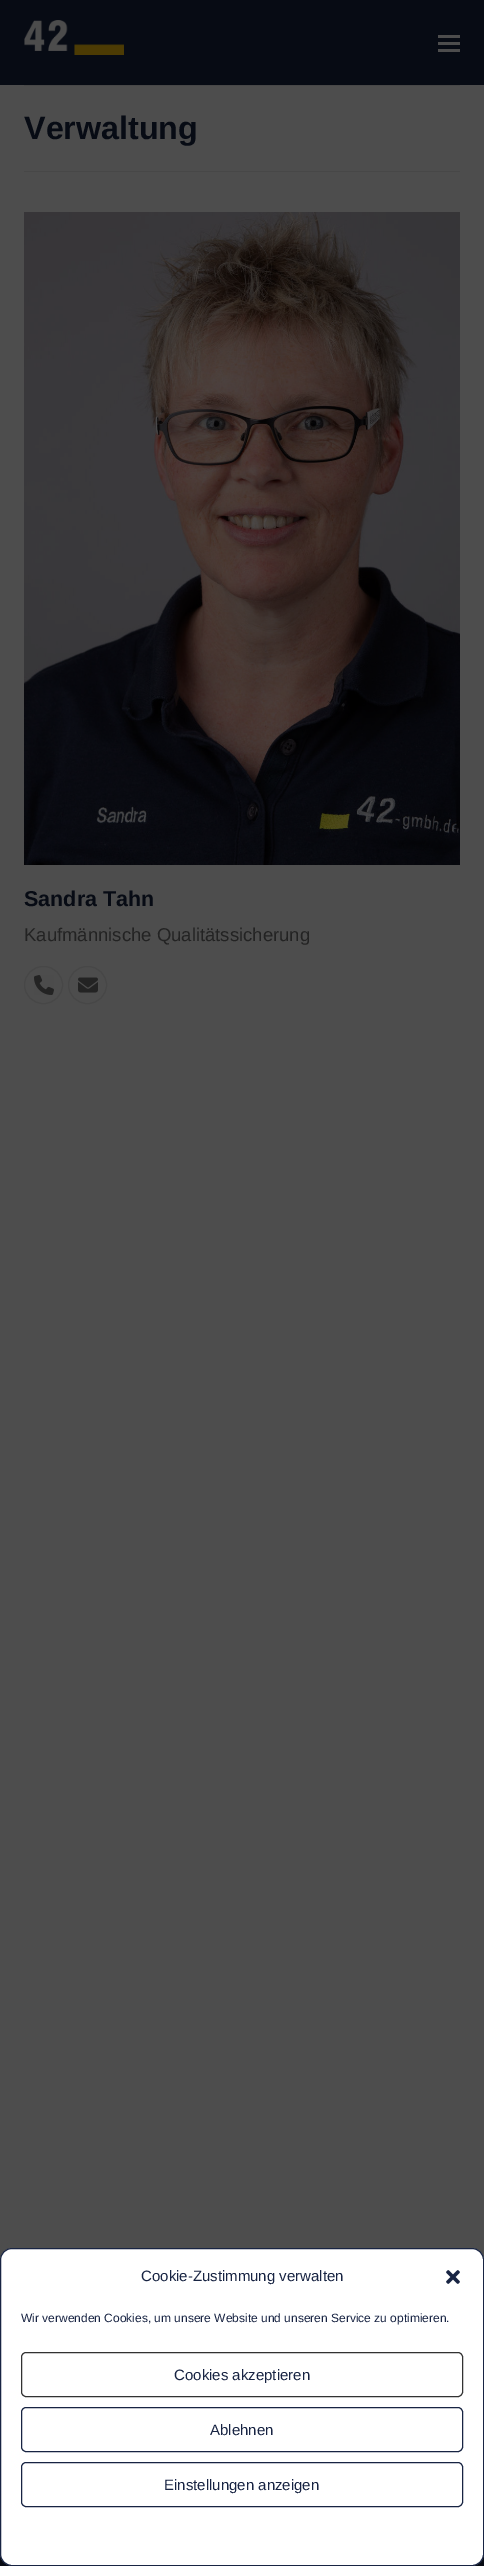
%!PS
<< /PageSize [484 2566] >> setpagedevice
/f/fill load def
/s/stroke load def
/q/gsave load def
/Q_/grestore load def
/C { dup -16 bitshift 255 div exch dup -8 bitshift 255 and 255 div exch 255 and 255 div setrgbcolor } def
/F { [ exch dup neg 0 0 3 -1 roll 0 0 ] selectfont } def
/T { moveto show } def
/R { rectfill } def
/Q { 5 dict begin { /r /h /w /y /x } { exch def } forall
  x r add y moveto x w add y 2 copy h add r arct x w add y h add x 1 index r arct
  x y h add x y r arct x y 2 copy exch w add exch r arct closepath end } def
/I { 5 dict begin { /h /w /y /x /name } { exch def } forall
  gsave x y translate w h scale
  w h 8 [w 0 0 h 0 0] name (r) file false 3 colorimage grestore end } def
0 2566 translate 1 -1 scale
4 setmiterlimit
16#4D4D4D C
0 0 484 2566 R
16#070B14 C
0 0 484 85 R
(1.rgb) 24 20 100 35 I
16#4D4D4D C
438 42 22 3 R
438 35 22 3 R
438 49 22 3 R
16#474747 C
24 85 436 1 R
24 171 436 1 R
/LiberationSans-Bold 32.25 F
16#070B14 C
(Verwaltung) 24 139 T
(2.rgb) 24 212 436 653 I
/LiberationSans-Bold 21.5 F
(Sandra Tahn) 24 906 T
/LiberationSans-Regular 18.5 F
16#232323 C
(Kaufmännische Qualitätssicherung) 24 941 T
16#474747 C
24.5 966.5 38 37 18.5 Q s
(3.rgb) 34 975 20 20 I
68.5 966.5 38 37 18.5 Q s
(4.rgb) 78 977 20 16 I
16#070B14 C
0 2554 484 12 R
16#FFFFFF C
.5 2248.5 483 317 11.5 Q q f Q_
16#182443 C
s
/LiberationSans-Regular 15 F
(Cookie-Zustimmung verwalten) 141 2281 T
(5.rgb) 446 2270 14 14 I
/LiberationSans-Regular 12 F
(Wir verwenden Cookies, um unsere Website und unseren Service zu optimieren.) 21 2322 T
16#333333 C
21.5 2352.5 441 44 4.5 Q s
/LiberationSans-Regular 15 F
16#182443 C
(Cookies akzeptieren) 174 2380 T
21.5 2407.5 441 44 4.5 Q s
(Ablehnen) 210 2435 T
21.5 2462.5 441 44 4.5 Q s
(Einstellungen anzeigen) 164 2490 T
showpage
